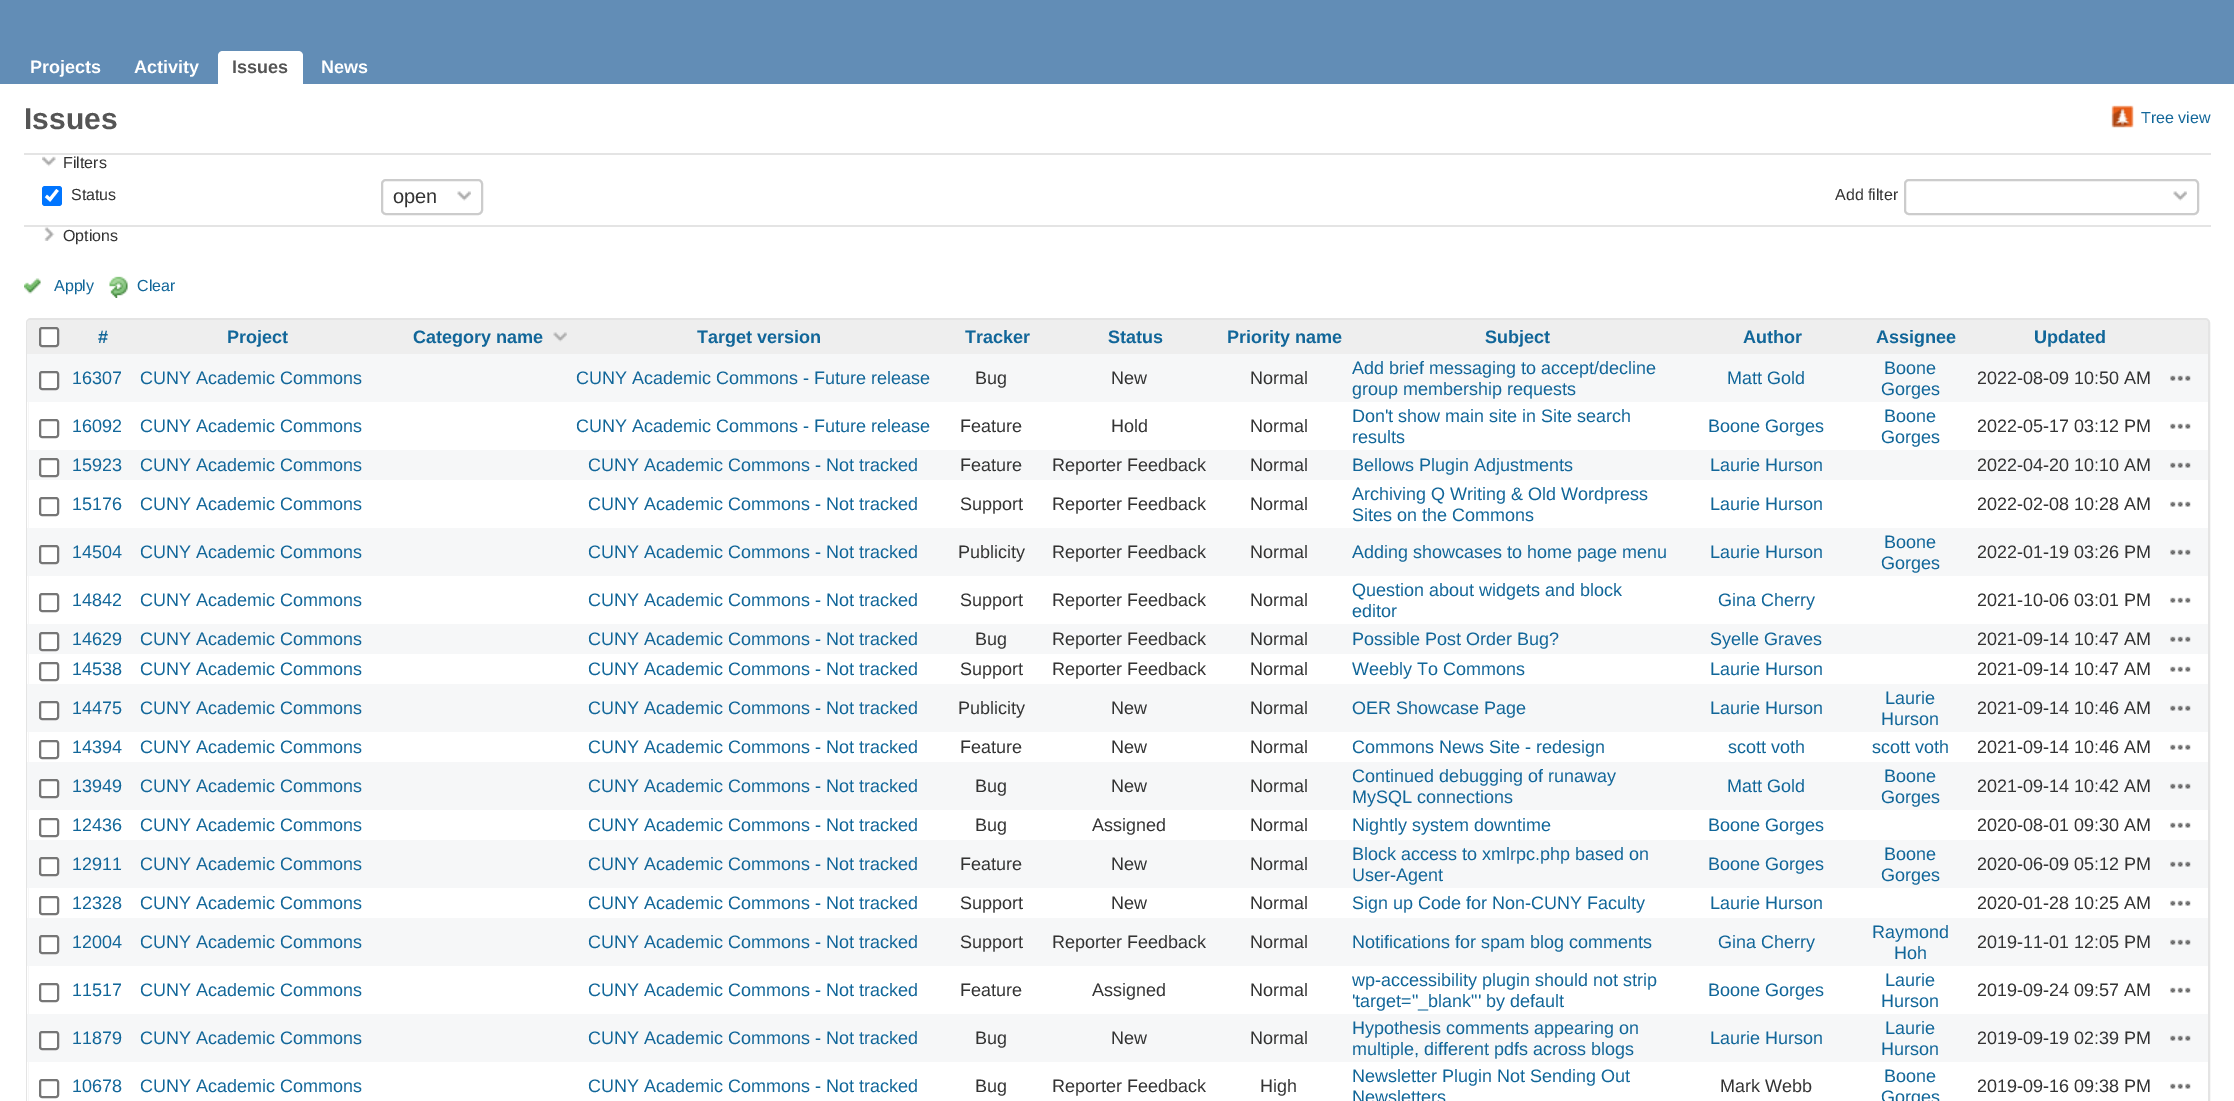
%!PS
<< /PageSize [2234 1101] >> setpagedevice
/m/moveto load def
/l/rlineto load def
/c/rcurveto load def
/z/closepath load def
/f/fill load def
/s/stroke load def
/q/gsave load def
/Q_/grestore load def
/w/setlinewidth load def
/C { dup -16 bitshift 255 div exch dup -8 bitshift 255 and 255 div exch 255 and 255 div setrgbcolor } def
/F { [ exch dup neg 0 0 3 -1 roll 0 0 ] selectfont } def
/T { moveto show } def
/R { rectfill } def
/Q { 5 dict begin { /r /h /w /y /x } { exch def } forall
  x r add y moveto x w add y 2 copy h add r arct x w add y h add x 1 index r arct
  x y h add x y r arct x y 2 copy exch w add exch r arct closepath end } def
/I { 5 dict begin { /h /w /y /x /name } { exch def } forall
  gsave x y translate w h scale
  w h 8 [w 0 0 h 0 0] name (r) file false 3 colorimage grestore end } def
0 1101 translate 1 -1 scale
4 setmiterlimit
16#FFFFFF C
0 0 2234 1101 R
16#628DB6 C
0 0 2234 84 R
/LiberationSans-Bold 18 F
16#FFFFFF C
(Projects) 30 73 T
(Activity) 134 73 T
223 51 m 75 0 l 3 0 5 2 5 5 c 0 28 l -85 0 l 0 -28 l 0 -3 2 -5 5 -5 c z f
16#555555 C
(Issues) 232 73 T
16#FFFFFF C
(News) 321 73 T
/LiberationSans-Bold 30 F
16#555555 C
(Issues) 24 129 T
(1.rgb) 2111 105 23 23 I
/LiberationSans-Regular 16 F
16#116699 C
(Tree view) 2141 123 T
16#E4E4E4 C
24 153 2187 2 R
(2.rgb) 42 156 14 11 I
16#333333 C
(Filters) 63 168 T
16#0075FF C
42 186 20 20 3 Q f
16#FFFFFF C
3.1 w
46 196 m 4 3.5 l 7.5 -9.5 l s
16#333333 C
(Status) 71 200 T
(3.rgb) 457 191 14 10 I
16#CCCCCC C
2 w
382 180 100 34 4 Q s
/LiberationSans-Regular 20 F
16#333333 C
(open) 393 203 T
/LiberationSans-Regular 16 F
(Add filter) 1835 200 T
(4.rgb) 2173 191 14 10 I
16#CCCCCC C
1905 180 293 34 4 Q s
16#E4E4E4 C
24 225 2187 2 R
(5.rgb) 44 227 11 14 I
16#333333 C
(Options) 63 241 T
(6.rgb) 24 278 17 16 I
16#116699 C
(Apply) 54 291 T
(7.rgb) 109 276 19 22 I
(Clear) 137 291 T
16#E4E4E4 C
27 319 2182 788 4 Q s
16#EEEEEE C
30 320 m 39 0 l 0 34 l -42 0 l 0 -31 l 0 -1.5 1.5 -3 3 -3 c z f
16#FFFFFF C
40 328 18 18 2 Q q f Q_
16#767676 C
s
16#EEEEEE C
69 320 2097 34 R
/LiberationSans-Bold 18 F
16#116699 C
(#) 98 343 T
(Project) 227 343 T
(Category name) 413 343 T
(8.rgb) 553 332 14 10 I
(Target version) 697 343 T
(Tracker) 965 343 T
(Status) 1108 343 T
(Priority name) 1227 343 T
(Subject) 1485 343 T
(Author) 1743 343 T
(Assignee) 1876 343 T
(Updated) 2034 343 T
16#EEEEEE C
2166 320 m 39 0 l 1.5 0 3 1.5 3 3 c 0 31 l -42 0 l z f
16#F6F7F8 C
27 354 2181 48 R
16#FFFFFF C
40 372 18 17 2 Q q f Q_
16#767676 C
s
/LiberationSans-Regular 18 F
16#116699 C
(16307) 72 384 T
(CUNY Academic Commons) 140 384 T
(CUNY Academic Commons - Future release) 576 384 T
16#333333 C
(Bug) 975 384 T
(New) 1111 384 T
(Normal) 1250 384 T
16#116699 C
(Add brief messaging to accept/decline) 1352 374 T
(group membership requests) 1352 395 T
(Matt Gold) 1727 384 T
(Boone) 1884 374 T
(Gorges) 1881 395 T
16#333333 C
(2022-08-09 10:50 AM) 1977 384 T
(9.rgb) 2170 375 21 6 I
16#FFFFFF C
27 402 1 48 R
16#767676 C
40 420 18 17 2 Q s
16#116699 C
(16092) 72 432 T
(CUNY Academic Commons) 140 432 T
(CUNY Academic Commons - Future release) 576 432 T
16#333333 C
(Feature) 960 432 T
(Hold) 1111 432 T
(Normal) 1250 432 T
16#116699 C
(Don't show main site in Site search) 1352 422 T
(results) 1352 443 T
(Boone Gorges) 1708 432 T
(Boone) 1884 422 T
(Gorges) 1881 443 T
16#333333 C
(2022-05-17 03:12 PM) 1977 432 T
(10.rgb) 2170 423 21 6 I
16#F6F7F8 C
27 450 2181 30 R
16#FFFFFF C
40 459 18 17 2 Q q f Q_
16#767676 C
s
16#116699 C
(15923) 72 471 T
(CUNY Academic Commons) 140 471 T
(CUNY Academic Commons - Not tracked) 588 471 T
16#333333 C
(Feature) 960 471 T
(Reporter Feedback) 1052 471 T
(Normal) 1250 471 T
16#116699 C
(Bellows Plugin Adjustments) 1352 471 T
(Laurie Hurson) 1710 471 T
16#333333 C
(2022-04-20 10:10 AM) 1977 471 T
(9.rgb) 2170 462 21 6 I
16#FFFFFF C
27 480 1 48 R
16#767676 C
40 498 18 17 2 Q s
16#116699 C
(15176) 72 510 T
(CUNY Academic Commons) 140 510 T
(CUNY Academic Commons - Not tracked) 588 510 T
16#333333 C
(Support) 960 510 T
(Reporter Feedback) 1052 510 T
(Normal) 1250 510 T
16#116699 C
(Archiving Q Writing & Old Wordpress) 1352 500 T
(Sites on the Commons) 1352 521 T
(Laurie Hurson) 1710 510 T
16#333333 C
(2022-02-08 10:28 AM) 1977 510 T
(10.rgb) 2170 501 21 6 I
16#F6F7F8 C
27 528 2181 48 R
16#FFFFFF C
40 546 18 17 2 Q q f Q_
16#767676 C
s
16#116699 C
(14504) 72 558 T
(CUNY Academic Commons) 140 558 T
(CUNY Academic Commons - Not tracked) 588 558 T
16#333333 C
(Publicity) 958 558 T
(Reporter Feedback) 1052 558 T
(Normal) 1250 558 T
16#116699 C
(Adding showcases to home page menu) 1352 558 T
(Laurie Hurson) 1710 558 T
(Boone) 1884 548 T
(Gorges) 1881 569 T
16#333333 C
(2022-01-19 03:26 PM) 1977 558 T
(9.rgb) 2170 549 21 6 I
16#FFFFFF C
27 576 1 48 R
16#767676 C
40 594 18 17 2 Q s
16#116699 C
(14842) 72 606 T
(CUNY Academic Commons) 140 606 T
(CUNY Academic Commons - Not tracked) 588 606 T
16#333333 C
(Support) 960 606 T
(Reporter Feedback) 1052 606 T
(Normal) 1250 606 T
16#116699 C
(Question about widgets and block) 1352 596 T
(editor) 1352 617 T
(Gina Cherry) 1718 606 T
16#333333 C
(2021-10-06 03:01 PM) 1977 606 T
(10.rgb) 2170 597 21 6 I
16#F6F7F8 C
27 624 2181 30 R
16#FFFFFF C
40 633 18 17 2 Q q f Q_
16#767676 C
s
16#116699 C
(14629) 72 645 T
(CUNY Academic Commons) 140 645 T
(CUNY Academic Commons - Not tracked) 588 645 T
16#333333 C
(Bug) 975 645 T
(Reporter Feedback) 1052 645 T
(Normal) 1250 645 T
16#116699 C
(Possible Post Order Bug?) 1352 645 T
(Syelle Graves) 1710 645 T
16#333333 C
(2021-09-14 10:47 AM) 1977 645 T
(9.rgb) 2170 636 21 6 I
16#FFFFFF C
27 654 1 30 R
16#767676 C
40 663 18 17 2 Q s
16#116699 C
(14538) 72 675 T
(CUNY Academic Commons) 140 675 T
(CUNY Academic Commons - Not tracked) 588 675 T
16#333333 C
(Support) 960 675 T
(Reporter Feedback) 1052 675 T
(Normal) 1250 675 T
16#116699 C
(Weebly To Commons) 1352 675 T
(Laurie Hurson) 1710 675 T
16#333333 C
(2021-09-14 10:47 AM) 1977 675 T
(10.rgb) 2170 666 21 6 I
16#F6F7F8 C
27 684 2181 48 R
16#FFFFFF C
40 702 18 17 2 Q q f Q_
16#767676 C
s
16#116699 C
(14475) 72 714 T
(CUNY Academic Commons) 140 714 T
(CUNY Academic Commons - Not tracked) 588 714 T
16#333333 C
(Publicity) 958 714 T
(New) 1111 714 T
(Normal) 1250 714 T
16#116699 C
(OER Showcase Page) 1352 714 T
(Laurie Hurson) 1710 714 T
(Laurie) 1885 704 T
(Hurson) 1881 725 T
16#333333 C
(2021-09-14 10:46 AM) 1977 714 T
(9.rgb) 2170 705 21 6 I
16#FFFFFF C
27 732 1 30 R
16#767676 C
40 741 18 17 2 Q s
16#116699 C
(14394) 72 753 T
(CUNY Academic Commons) 140 753 T
(CUNY Academic Commons - Not tracked) 588 753 T
16#333333 C
(Feature) 960 753 T
(New) 1111 753 T
(Normal) 1250 753 T
16#116699 C
(Commons News Site - redesign) 1352 753 T
(scott voth) 1728 753 T
(scott voth) 1872 753 T
16#333333 C
(2021-09-14 10:46 AM) 1977 753 T
(10.rgb) 2170 744 21 6 I
16#F6F7F8 C
27 762 2181 48 R
16#FFFFFF C
40 780 18 17 2 Q q f Q_
16#767676 C
s
16#116699 C
(13949) 72 792 T
(CUNY Academic Commons) 140 792 T
(CUNY Academic Commons - Not tracked) 588 792 T
16#333333 C
(Bug) 975 792 T
(New) 1111 792 T
(Normal) 1250 792 T
16#116699 C
(Continued debugging of runaway) 1352 782 T
(MySQL connections) 1352 803 T
(Matt Gold) 1727 792 T
(Boone) 1884 782 T
(Gorges) 1881 803 T
16#333333 C
(2021-09-14 10:42 AM) 1977 792 T
(9.rgb) 2170 783 21 6 I
16#FFFFFF C
27 810 1 30 R
16#767676 C
40 819 18 17 2 Q s
16#116699 C
(12436) 72 831 T
(CUNY Academic Commons) 140 831 T
(CUNY Academic Commons - Not tracked) 588 831 T
16#333333 C
(Bug) 975 831 T
(Assigned) 1092 831 T
(Normal) 1250 831 T
16#116699 C
(Nightly system downtime) 1352 831 T
(Boone Gorges) 1708 831 T
16#333333 C
(2020-08-01 09:30 AM) 1977 831 T
(10.rgb) 2170 822 21 6 I
16#F6F7F8 C
27 840 2181 48 R
16#FFFFFF C
40 858 18 17 2 Q q f Q_
16#767676 C
s
16#116699 C
(12911) 72 870 T
(CUNY Academic Commons) 140 870 T
(CUNY Academic Commons - Not tracked) 588 870 T
16#333333 C
(Feature) 960 870 T
(New) 1111 870 T
(Normal) 1250 870 T
16#116699 C
(Block access to xmlrpc.php based on) 1352 860 T
(User-Agent) 1352 881 T
(Boone Gorges) 1708 870 T
(Boone) 1884 860 T
(Gorges) 1881 881 T
16#333333 C
(2020-06-09 05:12 PM) 1977 870 T
(9.rgb) 2170 861 21 6 I
16#FFFFFF C
27 888 1 30 R
16#767676 C
40 897 18 17 2 Q s
16#116699 C
(12328) 72 909 T
(CUNY Academic Commons) 140 909 T
(CUNY Academic Commons - Not tracked) 588 909 T
16#333333 C
(Support) 960 909 T
(New) 1111 909 T
(Normal) 1250 909 T
16#116699 C
(Sign up Code for Non-CUNY Faculty) 1352 909 T
(Laurie Hurson) 1710 909 T
16#333333 C
(2020-01-28 10:25 AM) 1977 909 T
(10.rgb) 2170 900 21 6 I
16#F6F7F8 C
27 918 2181 48 R
16#FFFFFF C
40 936 18 17 2 Q q f Q_
16#767676 C
s
16#116699 C
(12004) 72 948 T
(CUNY Academic Commons) 140 948 T
(CUNY Academic Commons - Not tracked) 588 948 T
16#333333 C
(Support) 960 948 T
(Reporter Feedback) 1052 948 T
(Normal) 1250 948 T
16#116699 C
(Notifications for spam blog comments) 1352 948 T
(Gina Cherry) 1718 948 T
(Raymond) 1872 938 T
(Hoh) 1894 959 T
16#333333 C
(2019-11-01 12:05 PM) 1977 948 T
(9.rgb) 2170 939 21 6 I
16#FFFFFF C
27 966 1 48 R
16#767676 C
40 984 18 17 2 Q s
16#116699 C
(11517) 72 996 T
(CUNY Academic Commons) 140 996 T
(CUNY Academic Commons - Not tracked) 588 996 T
16#333333 C
(Feature) 960 996 T
(Assigned) 1092 996 T
(Normal) 1250 996 T
16#116699 C
(wp-accessibility plugin should not strip) 1352 986 T
('target="_blank"' by default) 1352 1007 T
(Boone Gorges) 1708 996 T
(Laurie) 1885 986 T
(Hurson) 1881 1007 T
16#333333 C
(2019-09-24 09:57 AM) 1977 996 T
(10.rgb) 2170 987 21 6 I
16#F6F7F8 C
27 1014 2181 48 R
16#FFFFFF C
40 1032 18 17 2 Q q f Q_
16#767676 C
s
16#116699 C
(11879) 72 1044 T
(CUNY Academic Commons) 140 1044 T
(CUNY Academic Commons - Not tracked) 588 1044 T
16#333333 C
(Bug) 975 1044 T
(New) 1111 1044 T
(Normal) 1250 1044 T
16#116699 C
(Hypothesis comments appearing on) 1352 1034 T
(multiple, different pdfs across blogs) 1352 1055 T
(Laurie Hurson) 1710 1044 T
(Laurie) 1885 1034 T
(Hurson) 1881 1055 T
16#333333 C
(2019-09-19 02:39 PM) 1977 1044 T
(9.rgb) 2170 1035 21 6 I
16#FFFFFF C
27 1062 1 39 R
16#767676 C
40 1080 18 17 2 Q s
16#116699 C
(10678) 72 1092 T
(CUNY Academic Commons) 140 1092 T
(CUNY Academic Commons - Not tracked) 588 1092 T
16#333333 C
(Bug) 975 1092 T
(Reporter Feedback) 1052 1092 T
(High) 1260 1092 T
16#116699 C
(Newsletter Plugin Not Sending Out) 1352 1082 T
(Newsletters) 1352 1103 T
16#333333 C
(Mark Webb) 1720 1092 T
16#116699 C
(Boone) 1884 1082 T
(Gorges) 1881 1103 T
16#333333 C
(2019-09-16 09:38 PM) 1977 1092 T
(10.rgb) 2170 1083 21 6 I
showpage
